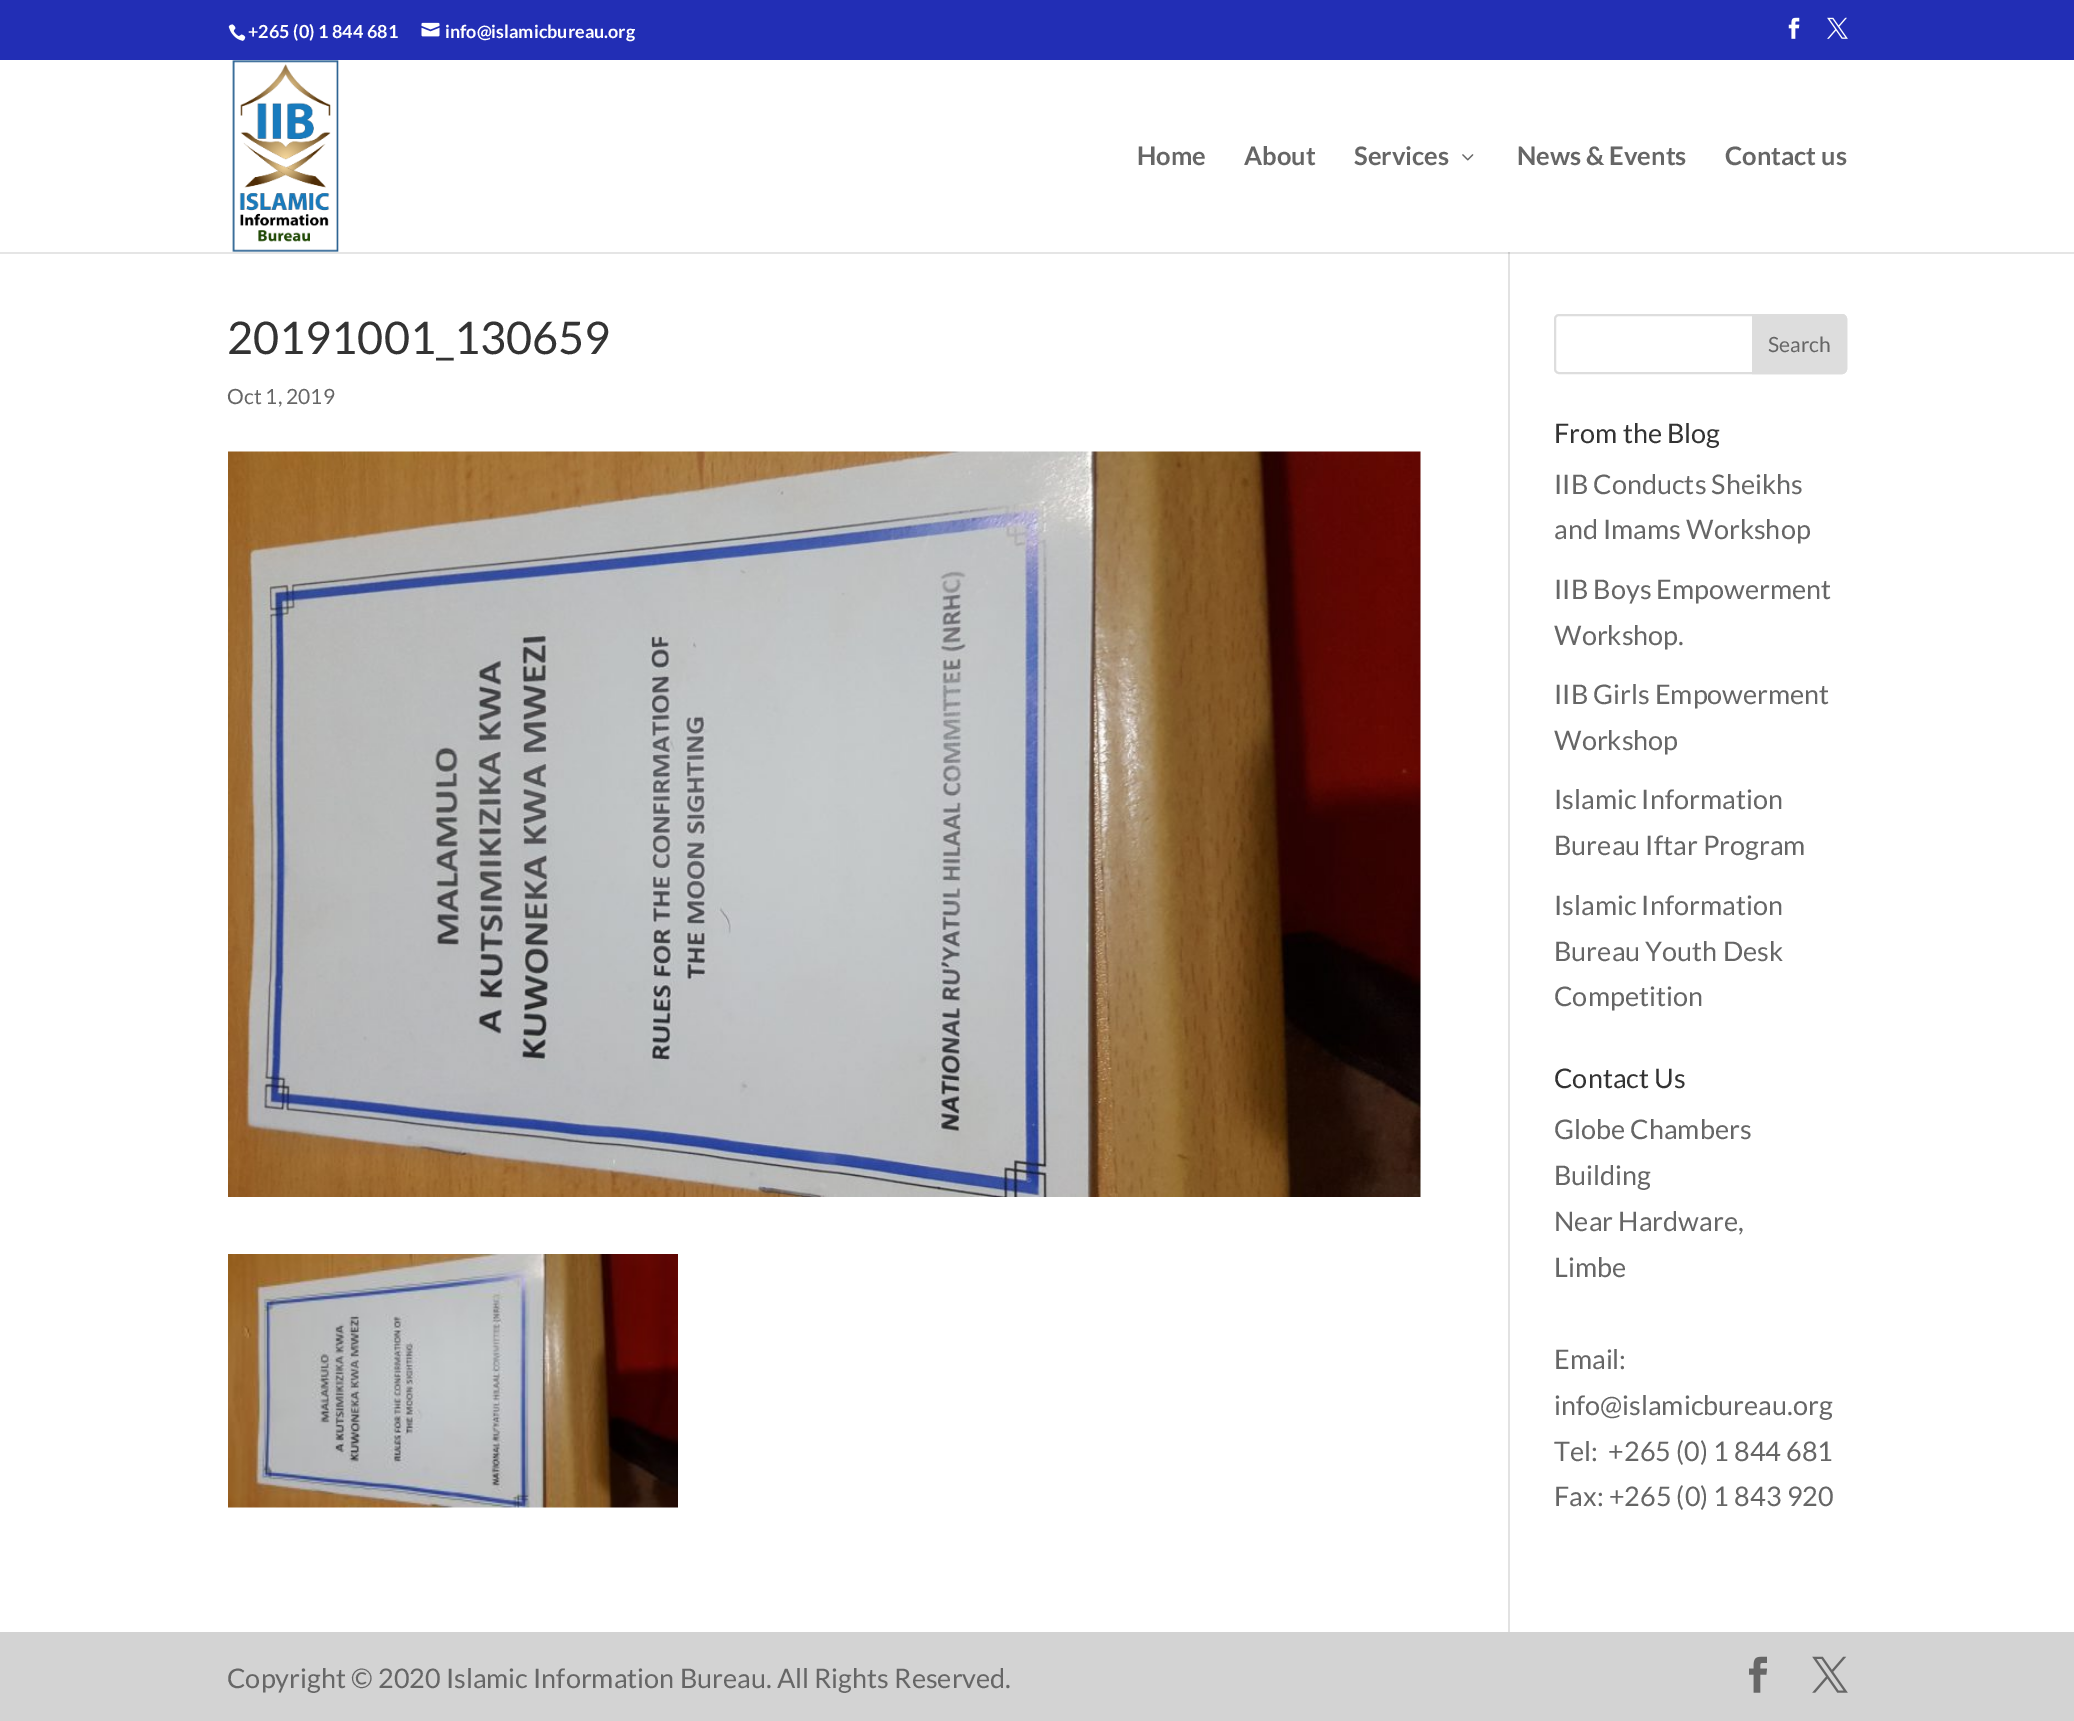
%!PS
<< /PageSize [2074 1721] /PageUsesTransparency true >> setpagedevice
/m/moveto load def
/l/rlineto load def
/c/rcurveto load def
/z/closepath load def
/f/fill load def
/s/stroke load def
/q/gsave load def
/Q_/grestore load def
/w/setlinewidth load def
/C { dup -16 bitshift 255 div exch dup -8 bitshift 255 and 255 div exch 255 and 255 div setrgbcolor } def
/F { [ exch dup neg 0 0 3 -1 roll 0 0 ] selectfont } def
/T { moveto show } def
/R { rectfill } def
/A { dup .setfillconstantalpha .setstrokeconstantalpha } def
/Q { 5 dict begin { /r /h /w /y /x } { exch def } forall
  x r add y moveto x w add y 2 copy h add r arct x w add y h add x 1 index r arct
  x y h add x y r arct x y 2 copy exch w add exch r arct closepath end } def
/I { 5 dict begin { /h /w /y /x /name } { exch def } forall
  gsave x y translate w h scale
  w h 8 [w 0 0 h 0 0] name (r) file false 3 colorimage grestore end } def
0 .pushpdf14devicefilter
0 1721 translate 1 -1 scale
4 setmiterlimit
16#FFFFFF C
0 0 2074 1721 R
16#222EB5 C
0 0 2074 60 R
(1.rgb) 228 24 18 17 I
/Lato-Bold 18 F
16#FFFFFF C
(+265 \(0\) 1 844 681) 248 38 T
(2.rgb) 421 22 19 15 I
(info@islamicbureau.org) 445 38 T
(3.rgb) 1788 17 12 22 I
(4.rgb) 1827 17 21 22 I
16#E2E2E2 C
1508 252 2 1380 R
0.1 A
16#000000 C
0 252 m 0 2 l 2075 0 l 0 -192 l -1 0 l 0 190 l z f
1 A
(5.rgb) 232 60 107 192 I
/Lato-Bold 25.5 F
16#666666 C
(Home) 1137 165 T
(About) 1244 165 T
(Services) 1354 165 T
(6.rgb) 1462 154 12 7 I
(News & Events) 1517 165 T
(Contact us) 1725 165 T
/Lato-Regular 45 F
16#333333 C
(20191001_130659) 227 354 T
/Lato-Regular 21 F
16#666666 C
(Oct 1, 2019) 227 404 T
(7.rgb) 228 451 1193 746 I
(8.rgb) 228 1254 450 254 I
16#DDDDDD C
2 w
1555 315 291 58 4 Q s
1753 315 m 89 0 l 2 0 4 2 4 4 c 0 50 l 0 2 -2 4 -4 4 c -89 0 l z q f Q_
s
16#666666 C
(Search) 1768 352 T
/Lato-Regular 27 F
16#333333 C
(From the Blog) 1554 443 T
16#666666 C
(IIB Conducts Sheikhs) 1554 494 T
(and Imams Workshop) 1554 539 T
(IIB Boys Empowerment) 1554 599 T
(Workshop.) 1554 645 T
(IIB Girls Empowerment) 1554 704 T
(Workshop) 1554 750 T
(Islamic Information) 1554 809 T
(Bureau Iftar Program) 1554 855 T
(Islamic Information) 1554 915 T
(Bureau Youth Desk) 1554 961 T
(Competition) 1554 1006 T
16#333333 C
(Contact Us) 1554 1088 T
16#666666 C
(Globe Chambers) 1554 1139 T
(Building) 1554 1185 T
(Near Hardware,) 1554 1231 T
(Limbe) 1554 1277 T
(Email:) 1554 1369 T
(info@islamicbureau.org) 1554 1415 T
(Tel:  +265 \(0\) 1 844 681) 1554 1461 T
(Fax: +265 \(0\) 1 843 920) 1554 1506 T
16#D3D3D3 C
0 1632 2074 89 R
16#666666 C
(Copyright © 2020 Islamic Information Bureau. All Rights Reserved.) 227 1688 T
(9.rgb) 1749 1656 18 37 I
(10.rgb) 1812 1656 36 37 I
.poppdf14devicefilter showpage
